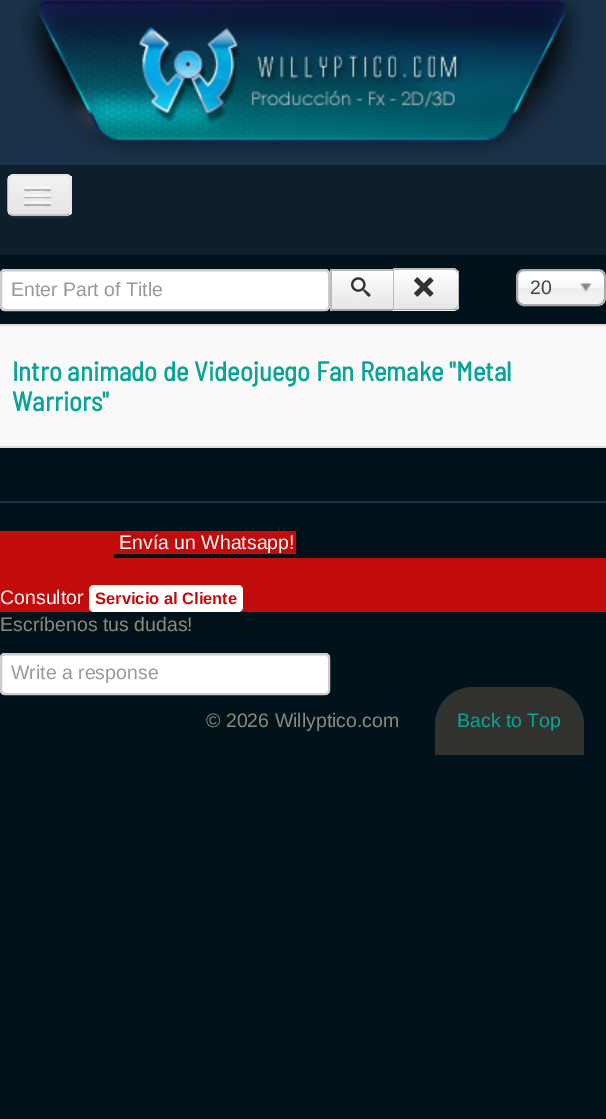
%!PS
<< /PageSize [606 1119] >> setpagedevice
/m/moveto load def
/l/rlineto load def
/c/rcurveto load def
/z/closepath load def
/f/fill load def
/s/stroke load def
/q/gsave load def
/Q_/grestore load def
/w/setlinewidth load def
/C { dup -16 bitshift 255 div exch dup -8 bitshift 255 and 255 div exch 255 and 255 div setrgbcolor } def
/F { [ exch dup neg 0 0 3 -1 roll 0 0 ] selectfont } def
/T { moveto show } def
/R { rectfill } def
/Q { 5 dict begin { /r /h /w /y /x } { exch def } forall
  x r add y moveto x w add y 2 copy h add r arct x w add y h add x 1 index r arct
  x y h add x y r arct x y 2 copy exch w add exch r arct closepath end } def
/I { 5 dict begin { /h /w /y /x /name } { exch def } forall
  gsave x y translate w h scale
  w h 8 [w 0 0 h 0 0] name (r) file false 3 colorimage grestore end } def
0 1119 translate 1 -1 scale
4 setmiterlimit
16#02121B C
0 0 606 1119 R
16#1A3249 C
0 0 606 165 R
(1.rgb) 21 0 562 156 I
16#0F1E2C C
0 167 606 87 R
16#0E1C29 C
0 254 606 1 R
0 165 606 2 R
16#212F3C C
8 212 m 0 4 3 6 6 6 c 52 0 l 3 0 6 -3 6 -6 c 0 -2 l 0 3 -3 6 -6 6 c -52 0 l -3 0 -5 -1 -6 -4 c z f
16#EDEDED C
8 174 64 42 6 Q f
q
8 174 64 42 6 Q clip newpath
q 8 176 m 64 0 l 0 39 l -64 0 l z clip newpath
<< /ShadingType 2 /ColorSpace /DeviceRGB /Coords [40 176 40 215] /Extend [true true] /Function << /FunctionType 2 /Domain [0 1] /C0 [.949 .949 .949] /C1 [.902 .902 .902] /N 1 >> >> shfill Q_
Q_
16#BFBFBF C
1.5 w
69.5 213.5 m -1 1 -2 1.5 -3.5 1.5 c -52.5 0 l -1.5 0 -2.5 -.5 -3.5 -1.5 c s
16#E6E6E6 C
10 213.5 m -1 -1 -2 -2 -2 -3.5 c 0 -30 l 0 -1.5 1 -2.5 2 -3.5 c 1 -1 2 -1.5 3.5 -1.5 c 52.5 0 l 1.5 0 2.5 .5 3.5 1.5 c 1 1 1.5 2 1.5 3.5 c 0 30 l 0 1.5 -.5 2.5 -1.5 3.5 c s
16#B3B3B3 C
24.5 188.5 m -.5 1.5 l .5 2 5 1 5.5 1 c 16 0 l .5 0 5 1 5.5 -1 c -.5 -1.5 l -1 .5 l -24 0 l z f
16#F5F5F5 C
24 186 27 3 1.5 Q f
16#B0B0B0 C
24 196 m -1.5 3 5.5 2 5.5 2 c 16 0 l 0 0 7 1 5.5 -2 c -.5 0 -1 .5 -1.5 .5 c -24 0 l -.5 0 -1 -.5 -1.5 -.5 c z f
16#F5F5F5 C
24 194 27 3 1.5 Q f
16#AFAFAF C
24.5 203.5 m -.5 1.5 l .5 2 5 1 5.5 1 c 16 0 l .5 0 5 1 5.5 -1 c -.5 -1.5 l -1 .5 l -24 0 l z f
16#F5F5F5 C
24 201 27 3 1.5 Q f
16#FFFFFF C
0 269 330 42 5 Q f
16#ECECEC C
4 272 m 322 0 l 1 0 2 1 2 2 c 0 34 l 1 0 1 -1 1 -2 c 0 -33 l 0 -2 -1 -3 -3 -3 c -321 0 l -2 0 -3 1 -3 3 c 0 1 l 0 -1 1 -2 2 -2 c z f
16#CCCCCC C
2 w
1 270 328 40 4 Q s
/LiberationSans-Regular 19.5 F
16#999999 C
(Enter Part of Title) 11 296 T
q 332 271 m 61 0 l 0 38 l -61 0 l z clip newpath
<< /ShadingType 2 /ColorSpace /DeviceRGB /Coords [362 270 362 309] /Extend [true true] /Function << /FunctionType 2 /Domain [0 1] /C0 [1 1 1] /C1 [.902 .902 .902] /N 1 >> >> shfill Q_
16#BBBBBB C
330 269 65 2 R
16#A2A2A2 C
330 309 65 2 R
16#BBBBBB C
330 269 2 42 R
(2.rgb) 351 277 20 20 I
16#F5F5F5 C
393 269 m 60 0 l 3.5 0 6 2.5 6 6 c 0 30 l 0 3.5 -2.5 6 -6 6 c -60 0 l z f
q
393 269 m 60 0 l 3.5 0 6 2.5 6 6 c 0 30 l 0 3.5 -2.5 6 -6 6 c -60 0 l z clip newpath
q 394 270 m 65 0 l 0 39 l -65 0 l z clip newpath
<< /ShadingType 2 /ColorSpace /DeviceRGB /Coords [426 270 426 309] /Extend [true true] /Function << /FunctionType 2 /Domain [0 1] /C0 [1 1 1] /C1 [.902 .902 .902] /N 1 >> >> shfill Q_
Q_
16#BBBBBB C
393 268 m 62 0 l 2 2 l -1 1 l -1 -1 -2 -1 -3 -1 c -59 0 l z f
459 304 m 0 -30 l 0 -1.5 -.5 -3 -1.5 -4 c -1.5 1 l 1 1 2 2 2 3 c 0 30 l 0 1.5 -1 3 -2 3.5 c 1 1 l 1 -1 2 -2.5 2 -4.5 c z f
16#A2A2A2 C
457 309 m -1 1 -3 1 -4 1 c -59 0 l 0 -1 l 59 0 l 1 0 2 0 3 -1 c z f
16#BBBBBB C
394 270 m -1 -2 l 0 42 l 1 -1 l z f
(3.rgb) 414 277 20 20 I
q 518 270 87 35 6 Q clip newpath
<< /ShadingType 2 /ColorSpace /DeviceRGB /Coords [561 270 561 305] /Extend [true true] /Function << /FunctionType 3 /Domain [0 1] /Functions [<< /FunctionType 2 /Domain [0 1] /C0 [1 1 1] /C1 [1 1 1] /N 1 >> << /FunctionType 2 /Domain [0 1] /C0 [1 1 1] /C1 [.965 .965 .965] /N 1 >> << /FunctionType 2 /Domain [0 1] /C0 [.965 .965 .965] /C1 [.933 .933 .933] /N 1 >> << /FunctionType 2 /Domain [0 1] /C0 [.933 .933 .933] /C1 [.957 .957 .957] /N 1 >>] /Bounds [.2 .5 .52] /Encode [0 1 0 1 0 1 0 1] >> >> shfill Q_
16#AAAAAA C
517 270 88 35 7 Q s
16#444444 C
(20) 530 294 T
(4.rgb) 580 283 12 9 I
16#DDDDDD C
0 324 606 2 R
16#F9F9F9 C
0 326 606 120 R
16#DDDDDD C
0 446 606 2 R
/BarlowSemiCondensed-Bold 27 F
16#0AA399 C
(Intro animado de Videojuego Fan Remake "Metal) 12 381 T
(Warriors") 12 411 T
16#212946 C
0 501 606 2 R
16#C20B0B C
114 531 182 23 R
/LiberationSans-Regular 19.5 F
16#FFFFFF C
(Envía un Whatsapp!) 119 549 T
16#C20B0B C
0 531 114 27 R
0 558 606 54 R
16#FFFFFF C
(Consultor) 0 604 T
89 585 154 27 5 Q f
/LiberationSans-Bold 16.5 F
16#C20B0B C
(Servicio al Cliente) 95 604 T
/LiberationSans-Regular 19.5 F
16#888A7D C
(Escríbenos tus dudas!) 0 631 T
16#FFFFFF C
0 653 330 42 5 Q f
16#ECECEC C
4 656 m 322 0 l 1 0 2 1 2 2 c 0 34 l 1 0 1 -1 1 -2 c 0 -33 l 0 -2 -1 -3 -3 -3 c -321 0 l -2 0 -3 1 -3 3 c 0 1 l 0 -1 1 -2 2 -2 c z f
16#CCCCCC C
1 654 328 40 4 Q s
16#999999 C
(Write a response) 11 679 T
16#888A7D C
(© 2026 Willyptico.com) 206 727 T
16#31312D C
473 687 m 73 0 l 21 0 38 17 38 38 c 0 30 l -149 0 l 0 -30 l 0 -21 17 -38 38 -38 c z f
16#0AA399 C
(Back to Top) 457 727 T
showpage
